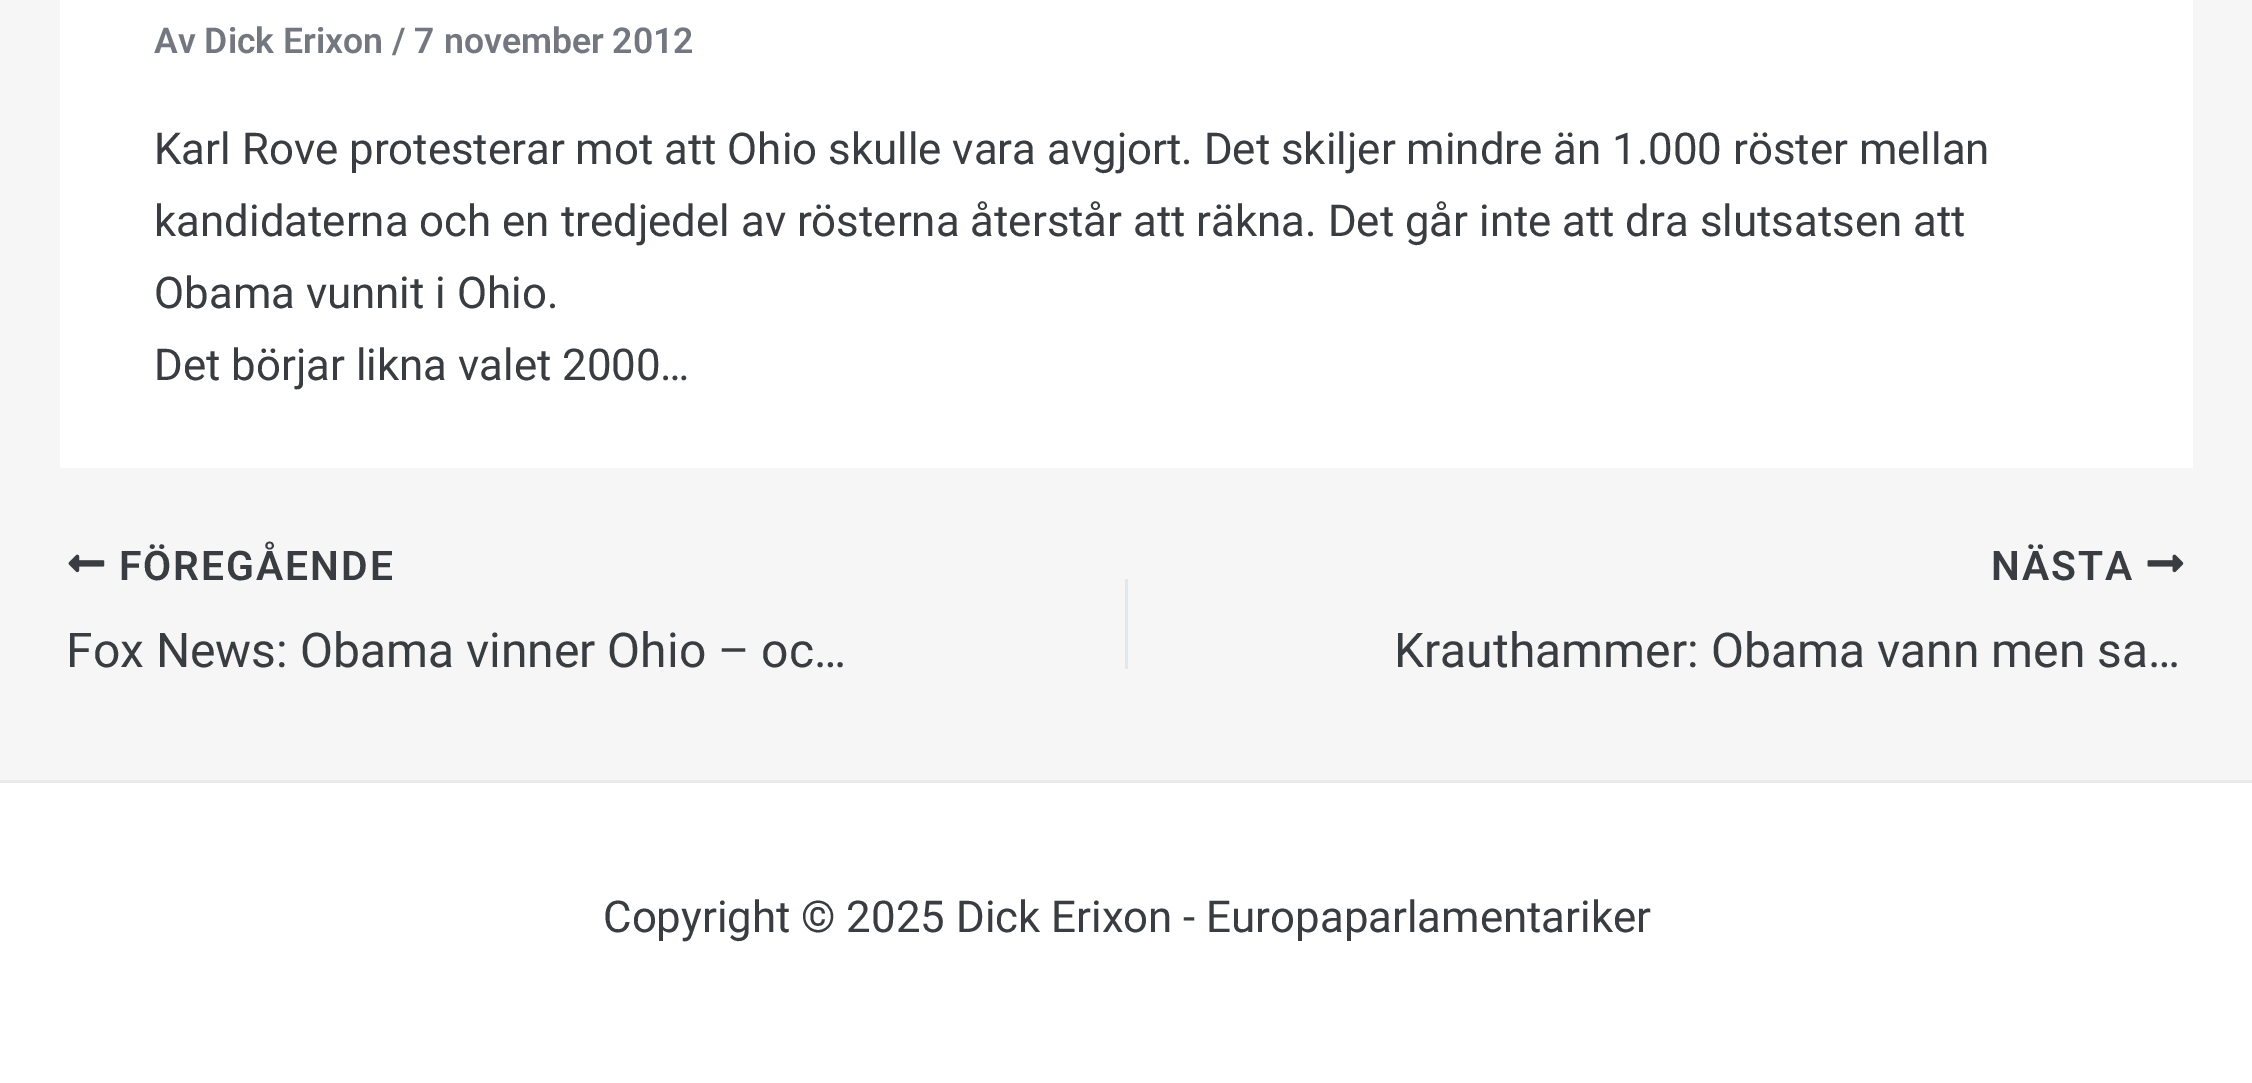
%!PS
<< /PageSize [2252 1083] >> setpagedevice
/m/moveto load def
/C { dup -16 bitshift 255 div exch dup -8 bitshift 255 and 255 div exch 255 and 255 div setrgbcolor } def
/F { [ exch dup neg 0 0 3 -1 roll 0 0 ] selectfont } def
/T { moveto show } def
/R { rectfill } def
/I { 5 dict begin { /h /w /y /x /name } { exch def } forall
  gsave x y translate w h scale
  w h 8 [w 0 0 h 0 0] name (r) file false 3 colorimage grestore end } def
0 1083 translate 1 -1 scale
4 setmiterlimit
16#F6F6F6 C
0 0 2252 1083 R
16#FFFFFF C
60 0 2133 468 R
/Roboto-SemiBold 35.6 F
16#737880 C
(Av Dick Erixon / 7 november 2012) 154 53 T
/Roboto-Regular 43.8 F
16#393C40 C
(Karl Rove protesterar mot att Ohio skulle vara avgjort. Det skiljer mindre än 1.000 röster mellan) 154 164 T
(kandidaterna och en tredjedel av rösterna återstår att räkna. Det går inte att dra slutsatsen att) 154 236 T
(Obama vunnit i Ohio.) 154 308 T
(Det börjar likna valet 2000…) 154 380 T
(1.rgb) 68 554 37 19 I
/Roboto-SemiBold 40.75 F
119 580 m 2 0 (FÖREGÅENDE) ashow
/Roboto-Regular 48 F
(Fox News: Obama vinner Ohio – oc…) 66 667 T
16#E1E8ED C
1125 579 3 90 R
/Roboto-SemiBold 40.75 F
16#393C40 C
1991 580 m 2 0 (NÄSTA) ashow
(2.rgb) 2147 554 37 19 I
/Roboto-Regular 48 F
(Krauthammer: Obama vann men sa…) 1394 667 T
16#FFFFFF C
0 783 2252 300 R
16#EAEAEA C
0 780 2252 3 R
/Roboto-Regular 43.8 F
16#393C40 C
(Copyright © 2025 Dick Erixon - Europaparlamentariker) 603 932 T
showpage
